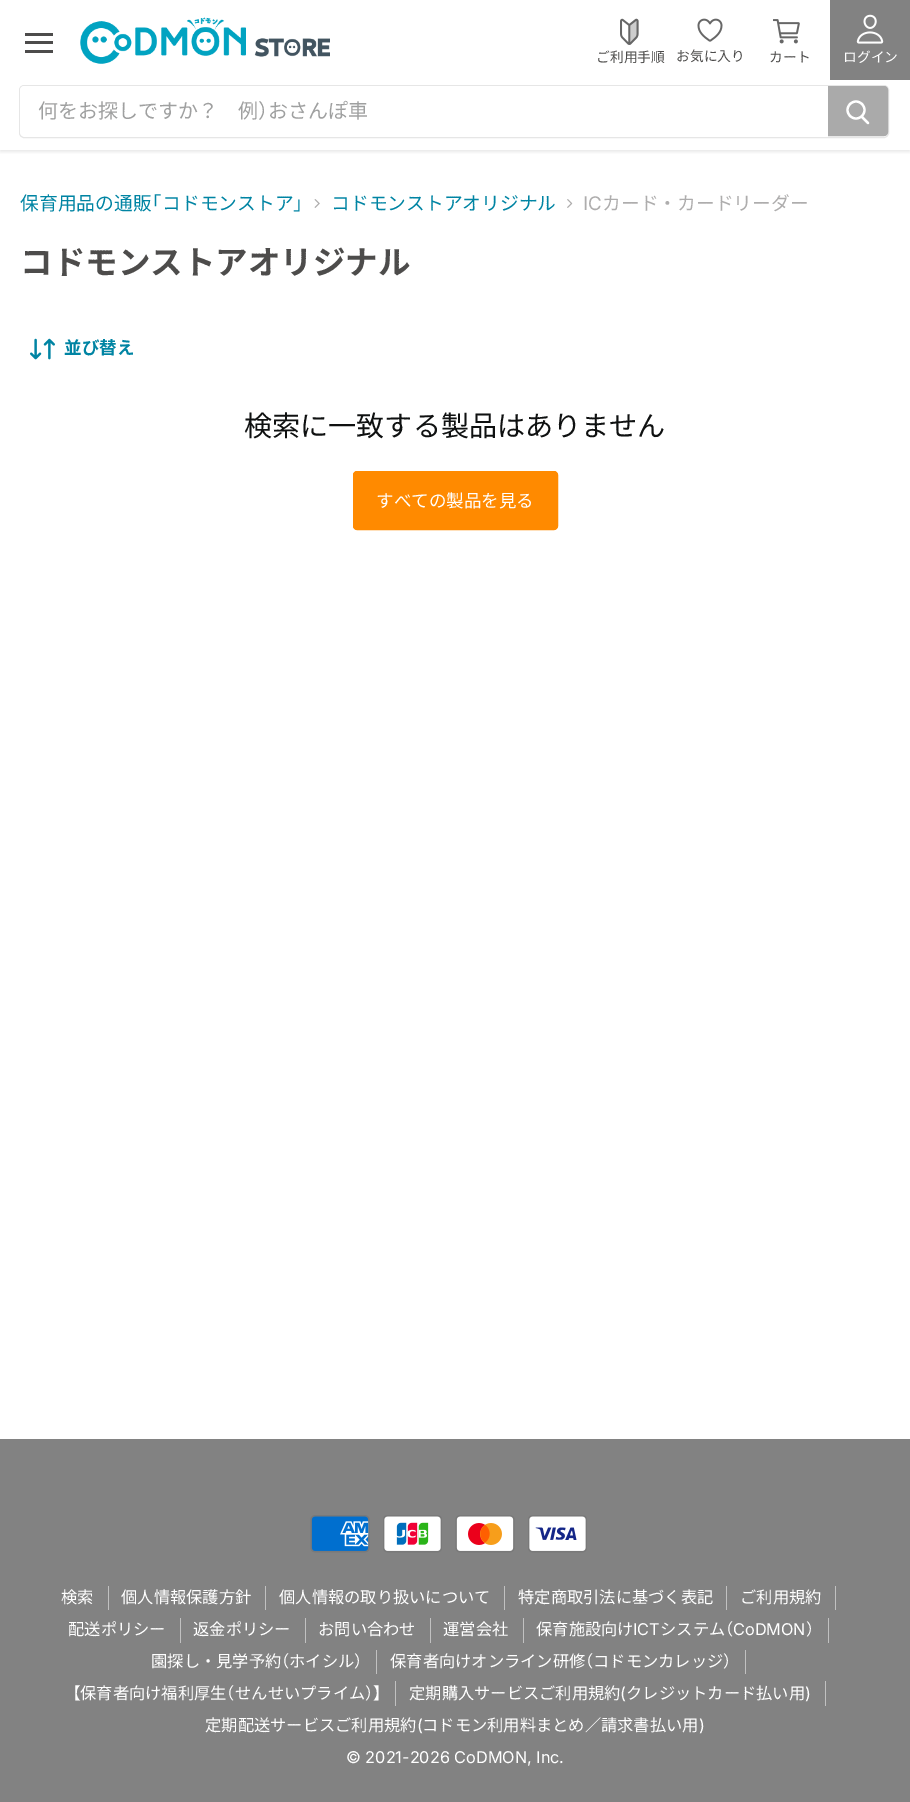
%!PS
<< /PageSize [910 1802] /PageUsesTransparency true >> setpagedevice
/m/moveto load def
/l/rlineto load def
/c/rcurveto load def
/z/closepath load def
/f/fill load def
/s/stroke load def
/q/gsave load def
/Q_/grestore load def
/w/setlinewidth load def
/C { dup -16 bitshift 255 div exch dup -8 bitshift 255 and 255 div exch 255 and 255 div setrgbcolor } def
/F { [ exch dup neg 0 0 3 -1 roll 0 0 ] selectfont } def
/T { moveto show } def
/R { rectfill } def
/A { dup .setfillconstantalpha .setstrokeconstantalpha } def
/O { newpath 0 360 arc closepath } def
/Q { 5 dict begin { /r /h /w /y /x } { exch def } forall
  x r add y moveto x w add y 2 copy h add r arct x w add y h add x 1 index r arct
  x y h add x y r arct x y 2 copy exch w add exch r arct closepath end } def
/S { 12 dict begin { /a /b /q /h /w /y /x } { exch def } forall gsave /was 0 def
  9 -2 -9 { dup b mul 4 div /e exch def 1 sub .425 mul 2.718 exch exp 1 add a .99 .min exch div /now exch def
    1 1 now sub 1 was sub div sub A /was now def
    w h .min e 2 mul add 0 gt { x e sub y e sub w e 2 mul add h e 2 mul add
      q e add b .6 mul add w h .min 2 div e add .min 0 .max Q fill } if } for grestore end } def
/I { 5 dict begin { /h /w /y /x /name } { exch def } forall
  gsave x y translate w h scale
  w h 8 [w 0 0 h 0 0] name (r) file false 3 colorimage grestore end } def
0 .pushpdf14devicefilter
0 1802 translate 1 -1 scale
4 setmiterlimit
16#FFFFFF C
0 0 910 1802 R
q
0 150 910 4 rectclip
16#808080 C
0 1 910 150 0 2.5 .25 S
Q_
16#4D4C4B C
25 33 28 3 R
25 41 28 3 R
25 50 28 3 R
(1.rgb) 620 18 19 27 I
/NotoSansJP-Regular 13.75 F
(ご利用手順) 596 62 T
(2.rgb) 697 18 26 24 I
(お気に入り) 676 61 T
(3.rgb) 773 19 27 25 I
(カート) 769 62 T
16#828282 C
830 0 80 80 R
(4.rgb) 856 14 28 30 I
16#FFFFFF C
(ログイン) 843 62 T
(5.rgb) 80 17 250 47 I
16#E6E6E6 C
19.5 85.5 869 52 4.5 Q s
16#FFFFFF C
24 86 m 804 0 l 0 50 l -804 0 l -2 0 -4 -2 -4 -4 c 0 -42 l 0 -2 2 -4 4 -4 c z f
/NotoSansJP-Regular 20 F
16#9FA0A0 C
(何をお探しですか？　例) 38 118 T
/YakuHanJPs-Regular 20 F
(）) 258 118 T
/NotoSansJP-Regular 20 F
(おさんぽ車) 268 118 T
16#AAAAAA C
828.5 86.5 m 55.5 0 l 2 0 3.5 1.5 3.5 3.5 c 0 42 l 0 2 -1.5 3.5 -3.5 3.5 c -55.5 0 l z q f Q_
s
16#FFFFFF C
2.2 w
1 setlinecap
868 123 m -6 -6 l s
0 setlinecap
856 110 8.5 O s
/NotoSansJP-Regular 18.75 F
16#0084A3 C
(保育用品の通販) 20 210 T
/YakuHanJPs-Regular 18.75 F
(「) 151 210 T
/NotoSansJP-Regular 18.75 F
(コドモンストア) 162 210 T
/YakuHanJPs-Regular 18.75 F
(」) 293 210 T
(6.rgb) 314 199 6 9 I
/NotoSansJP-Regular 18.75 F
(コドモンストアオリジナル) 331 210 T
(7.rgb) 567 199 6 9 I
/Inter-Regular 18.75 F
16#AEADAD C
(IC) 583 210 T
/NotoSansJP-Regular 18.75 F
(カード・カードリーダー) 602 210 T
/NotoSansJP-Bold 32.5 F
16#4D4C4B C
(コドモンストアオリジナル) 20 274 T
(8.rgb) 30 338 25 22 I
/NotoSansJP-Bold 17.5 F
16#0084A3 C
(並び替え) 64 354 T
/NotoSansJP-Regular 28.1 F
16#0F1111 C
(検索に一致する製品はありません) 244 436 T
16#FF8A00 C
353.5 471.5 204 58 3.5 Q q f Q_
1 w
s
/NotoSansJP-Regular 17.5 F
16#FFFFFF C
(すべての製品を見る) 376 507 T
16#828282 C
0 1439 910 363 R
(9.rgb) 310 1515 60 38 I
(10.rgb) 383 1515 59 38 I
(11.rgb) 455 1515 60 38 I
(12.rgb) 528 1515 59 38 I
16#C1C1C1 C
108 1586 1 24 R
/NotoSansJP-Regular 16.25 F
16#FFFFFF C
(検索) 61 1603 T
16#C1C1C1 C
265 1586 1 24 R
16#FFFFFF C
(個人情報保護方針) 121 1603 T
16#C1C1C1 C
504 1586 1 24 R
16#FFFFFF C
(個人情報の取り扱いについて) 279 1603 T
16#C1C1C1 C
726 1586 1 24 R
16#FFFFFF C
(特定商取引法に基づく表記) 518 1603 T
16#C1C1C1 C
835 1586 1 24 R
16#FFFFFF C
(ご利用規約) 740 1603 T
16#C1C1C1 C
180 1618 1 25 R
16#FFFFFF C
(配送ポリシー) 68 1635 T
16#C1C1C1 C
305 1618 1 25 R
16#FFFFFF C
(返金ポリシー) 193 1635 T
16#C1C1C1 C
430 1618 1 25 R
16#FFFFFF C
(お問い合わせ) 318 1635 T
16#C1C1C1 C
523 1618 1 25 R
16#FFFFFF C
(運営会社) 443 1635 T
16#C1C1C1 C
828 1618 1 25 R
16#FFFFFF C
(保育施設向け) 536 1635 T
/Inter-Regular 16.25 F
(ICT) 633 1635 T
/NotoSansJP-Regular 16.25 F
(システム) 660 1635 T
/YakuHanJPs-Regular 16.25 F
(（) 725 1635 T
/Inter-Regular 16.25 F
(CoDMON) 733 1635 T
/YakuHanJPs-Regular 16.25 F
(）) 806 1635 T
16#C1C1C1 C
376 1650 1 24 R
/NotoSansJP-Regular 16.25 F
16#FFFFFF C
(園探し・見学予約) 151 1667 T
/YakuHanJPs-Regular 16.25 F
(（) 281 1667 T
/NotoSansJP-Regular 16.25 F
(ホイシル) 289 1667 T
/YakuHanJPs-Regular 16.25 F
(）) 354 1667 T
16#C1C1C1 C
745 1650 1 24 R
/NotoSansJP-Regular 16.25 F
16#FFFFFF C
(保育者向けオンライン研修) 390 1667 T
/YakuHanJPs-Regular 16.25 F
(（) 585 1667 T
/NotoSansJP-Regular 16.25 F
(コドモンカレッジ) 593 1667 T
/YakuHanJPs-Regular 16.25 F
(）) 723 1667 T
16#C1C1C1 C
395 1681 1 25 R
16#FFFFFF C
(【) 72 1699 T
/NotoSansJP-Regular 16.25 F
(保育者向け福利厚生) 80 1699 T
/YakuHanJPs-Regular 16.25 F
(（) 226 1699 T
/NotoSansJP-Regular 16.25 F
(せんせいプライム) 235 1699 T
/YakuHanJPs-Regular 16.25 F
(）】) 365 1699 T
16#C1C1C1 C
825 1681 1 25 R
/NotoSansJP-Regular 16.25 F
16#FFFFFF C
(定期購入サービスご利用規約) 409 1699 T
/Inter-Regular 16.25 F
(\() 620 1699 T
/NotoSansJP-Regular 16.25 F
(クレジットカード払い用) 626 1699 T
/Inter-Regular 16.25 F
(\)) 805 1699 T
/NotoSansJP-Regular 16.25 F
(定期配送サービスご利用規約) 205 1731 T
/Inter-Regular 16.25 F
(\() 417 1731 T
/NotoSansJP-Regular 16.25 F
(コドモン利用料まとめ／請求書払い用) 422 1731 T
/Inter-Regular 16.25 F
(\)) 699 1731 T
(© 2021-2026 CoDMON, Inc.) 346 1763 T
.poppdf14devicefilter showpage
